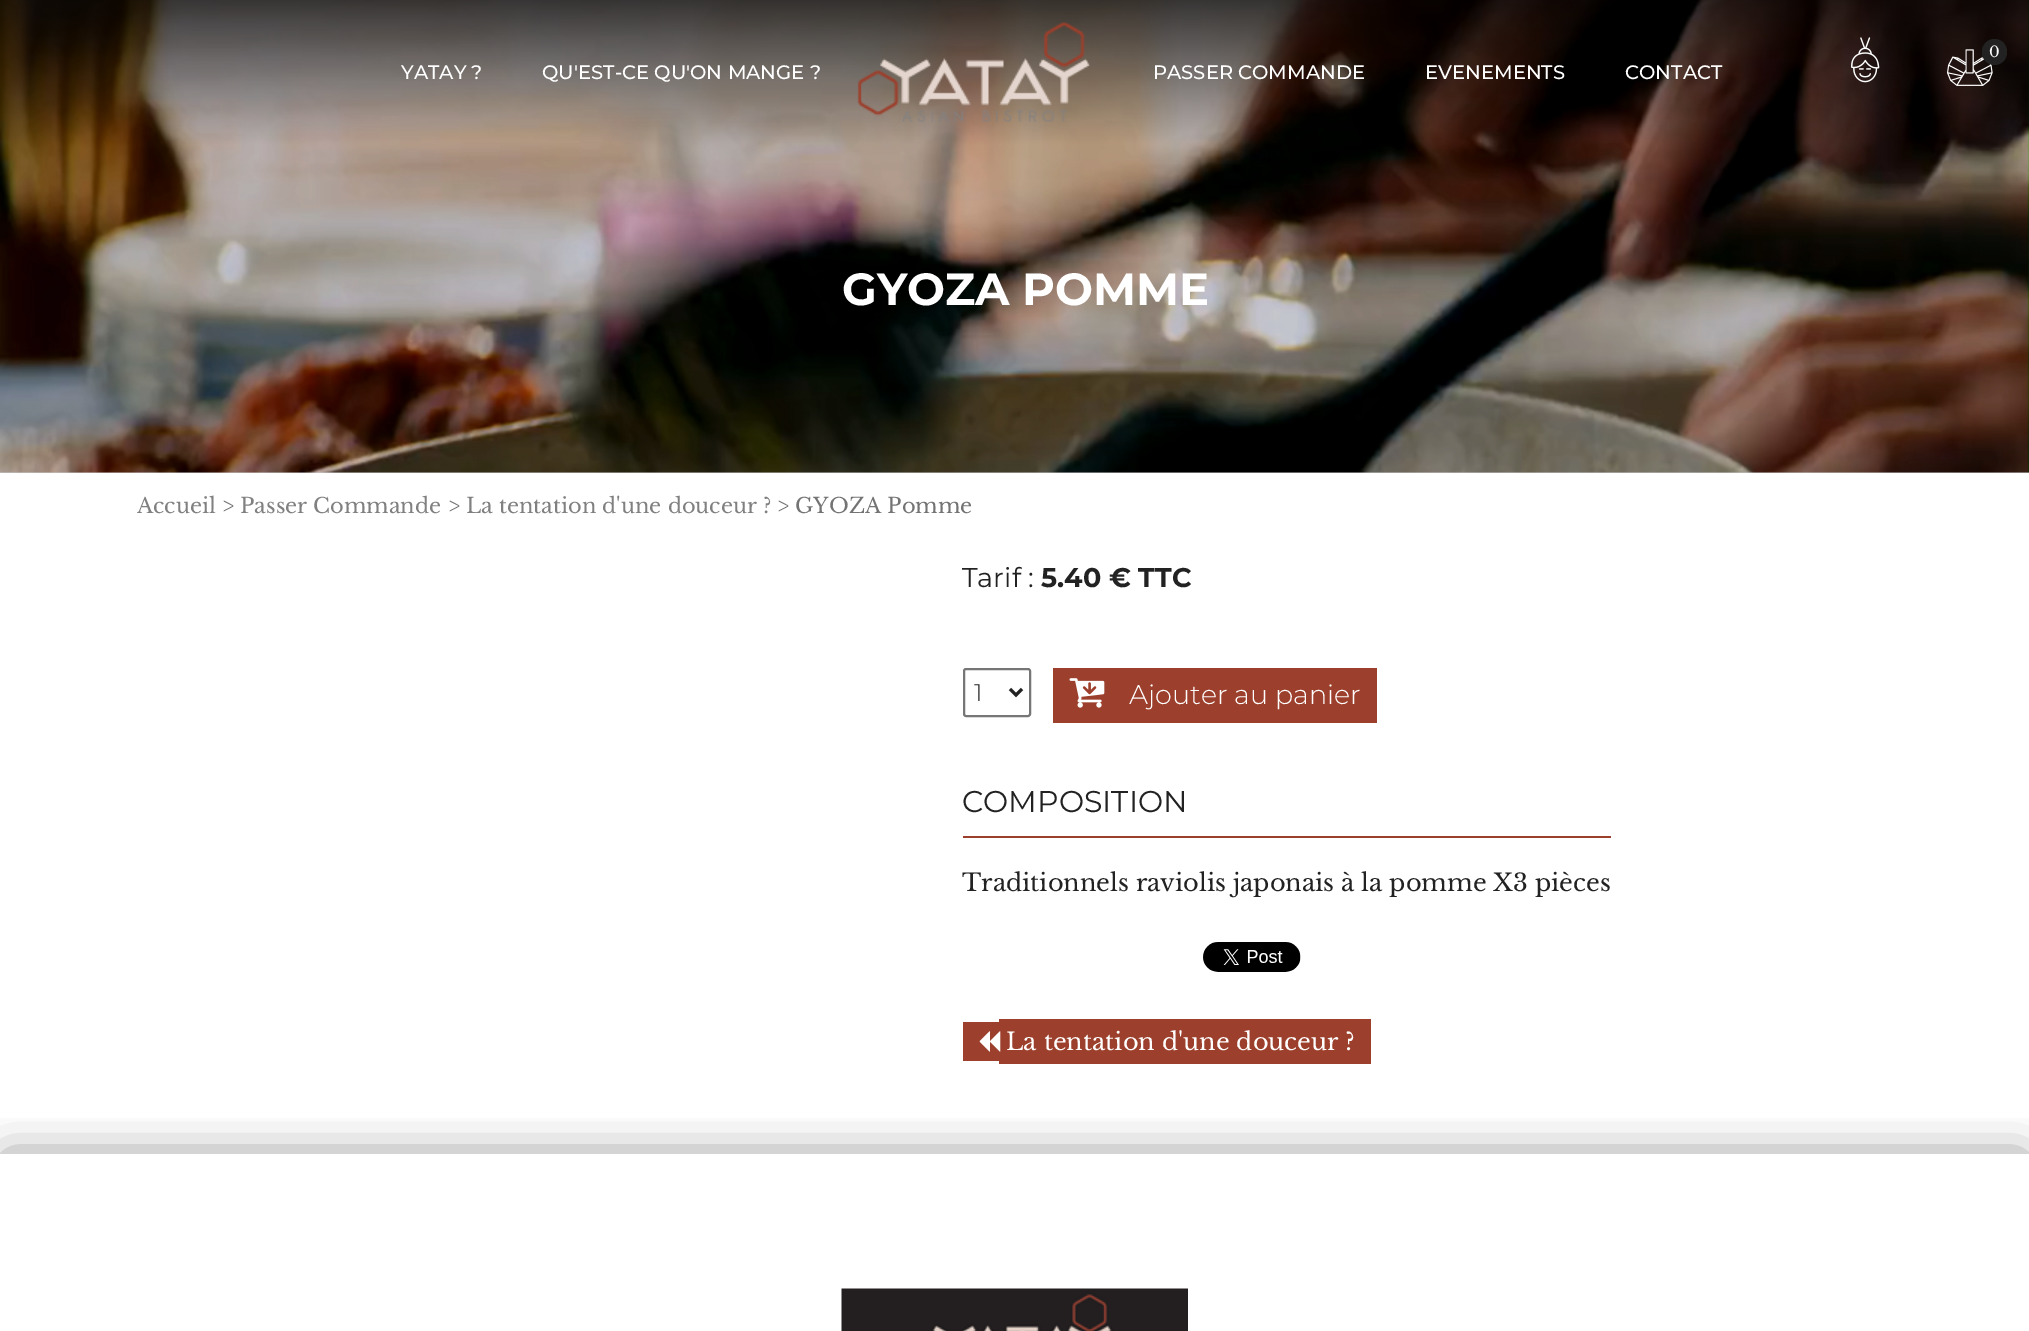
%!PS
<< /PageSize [2029 1331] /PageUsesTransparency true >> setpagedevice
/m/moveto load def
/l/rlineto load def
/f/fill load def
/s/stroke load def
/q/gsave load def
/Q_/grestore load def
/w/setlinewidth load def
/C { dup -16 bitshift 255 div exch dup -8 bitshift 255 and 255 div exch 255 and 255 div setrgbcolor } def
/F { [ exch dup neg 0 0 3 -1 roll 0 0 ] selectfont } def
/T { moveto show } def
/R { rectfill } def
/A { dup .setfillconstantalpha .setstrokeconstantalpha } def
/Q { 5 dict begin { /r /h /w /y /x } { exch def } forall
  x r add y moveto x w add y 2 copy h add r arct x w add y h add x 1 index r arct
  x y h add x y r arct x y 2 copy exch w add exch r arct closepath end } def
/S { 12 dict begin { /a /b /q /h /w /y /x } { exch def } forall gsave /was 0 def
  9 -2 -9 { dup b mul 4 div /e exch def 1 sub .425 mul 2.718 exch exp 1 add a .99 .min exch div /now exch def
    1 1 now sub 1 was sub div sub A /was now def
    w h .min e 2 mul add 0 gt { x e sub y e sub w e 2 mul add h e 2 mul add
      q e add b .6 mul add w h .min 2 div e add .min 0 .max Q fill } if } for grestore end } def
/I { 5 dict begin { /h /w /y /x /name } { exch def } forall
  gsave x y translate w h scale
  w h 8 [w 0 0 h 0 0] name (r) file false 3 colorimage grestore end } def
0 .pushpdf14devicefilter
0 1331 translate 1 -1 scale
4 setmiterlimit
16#FFFFFF C
0 0 2029 1331 R
16#CCCCCC C
0 472 2029 1 R
(4.rgb) 0 0 2029 473 I
(1.rgb) 1851 37 29 46 I
(2.rgb) 1947 49 46 37 I
16#222222 C
1982 39 25 26 12.5 Q f
/LibreBaskerville-Regular 15 F
16#FFFFFF C
(0) 1989 57 T
/Montserrat-Medium 19.5 F
(YATAY ?) 401 79 T
(QU'EST-CE QU'ON MANGE ?) 542 79 T
(3.rgb) 857 22 233 100 I
(PASSER COMMANDE) 1153 79 T
(EVENEMENTS) 1425 79 T
(CONTACT) 1625 79 T
/Montserrat-Bold 45 F
(GYOZA POMME) 842 305 T
/LibreBaskerville-Regular 21 F
16#808080 C
(Accueil) 137 513 T
16#737373 C
(>) 222 513 T
16#808080 C
(Passer Commande) 240 513 T
16#737373 C
(>) 448 513 T
16#808080 C
(La tentation d'une douceur ?) 466 513 T
16#737373 C
(> GYOZA Pomme) 777 513 T
/Montserrat-Regular 27 F
16#222222 C
(Tarif :) 962 587 T
/Montserrat-Bold 27 F
(5.40 € TTC) 1041 587 T
16#767676 C
2 w
964 669 66 47 2 Q s
16#222222 C
3 w
1010 689 m 6 6 l 6 -6 l s
/Montserrat-Light 24 F
(1) 974 701 T
16#9C402D C
1053 668 324 55 R
(5.rgb) 1069 678 36 30 I
/Montserrat-Light 27 F
16#FFFFFF C
(Ajouter au panier) 1129 704 T
16#9C402D C
963 836 648 2 R
/Montserrat-Regular 30 F
16#222222 C
(COMPOSITION) 962 812 T
/LibreBaskerville-Regular 24 F
(Traditionnels raviolis japonais à la pomme X3 pièces) 962 891 T
(6.rgb) 1203 942 98 30 I
16#9C402D C
963 1022 36 39 R
999 1019 372 45 R
(7.rgb) 979 1031 22 21 I
16#FFFFFF C
(La tentation d'une douceur ?) 1006 1050 T
q
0 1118 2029 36 rectclip
16#3A3A3A C
8 1161 2014 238 0 22.5 .72 S
Q_
(8.rgb) 841 1288 347 43 I
.poppdf14devicefilter showpage
